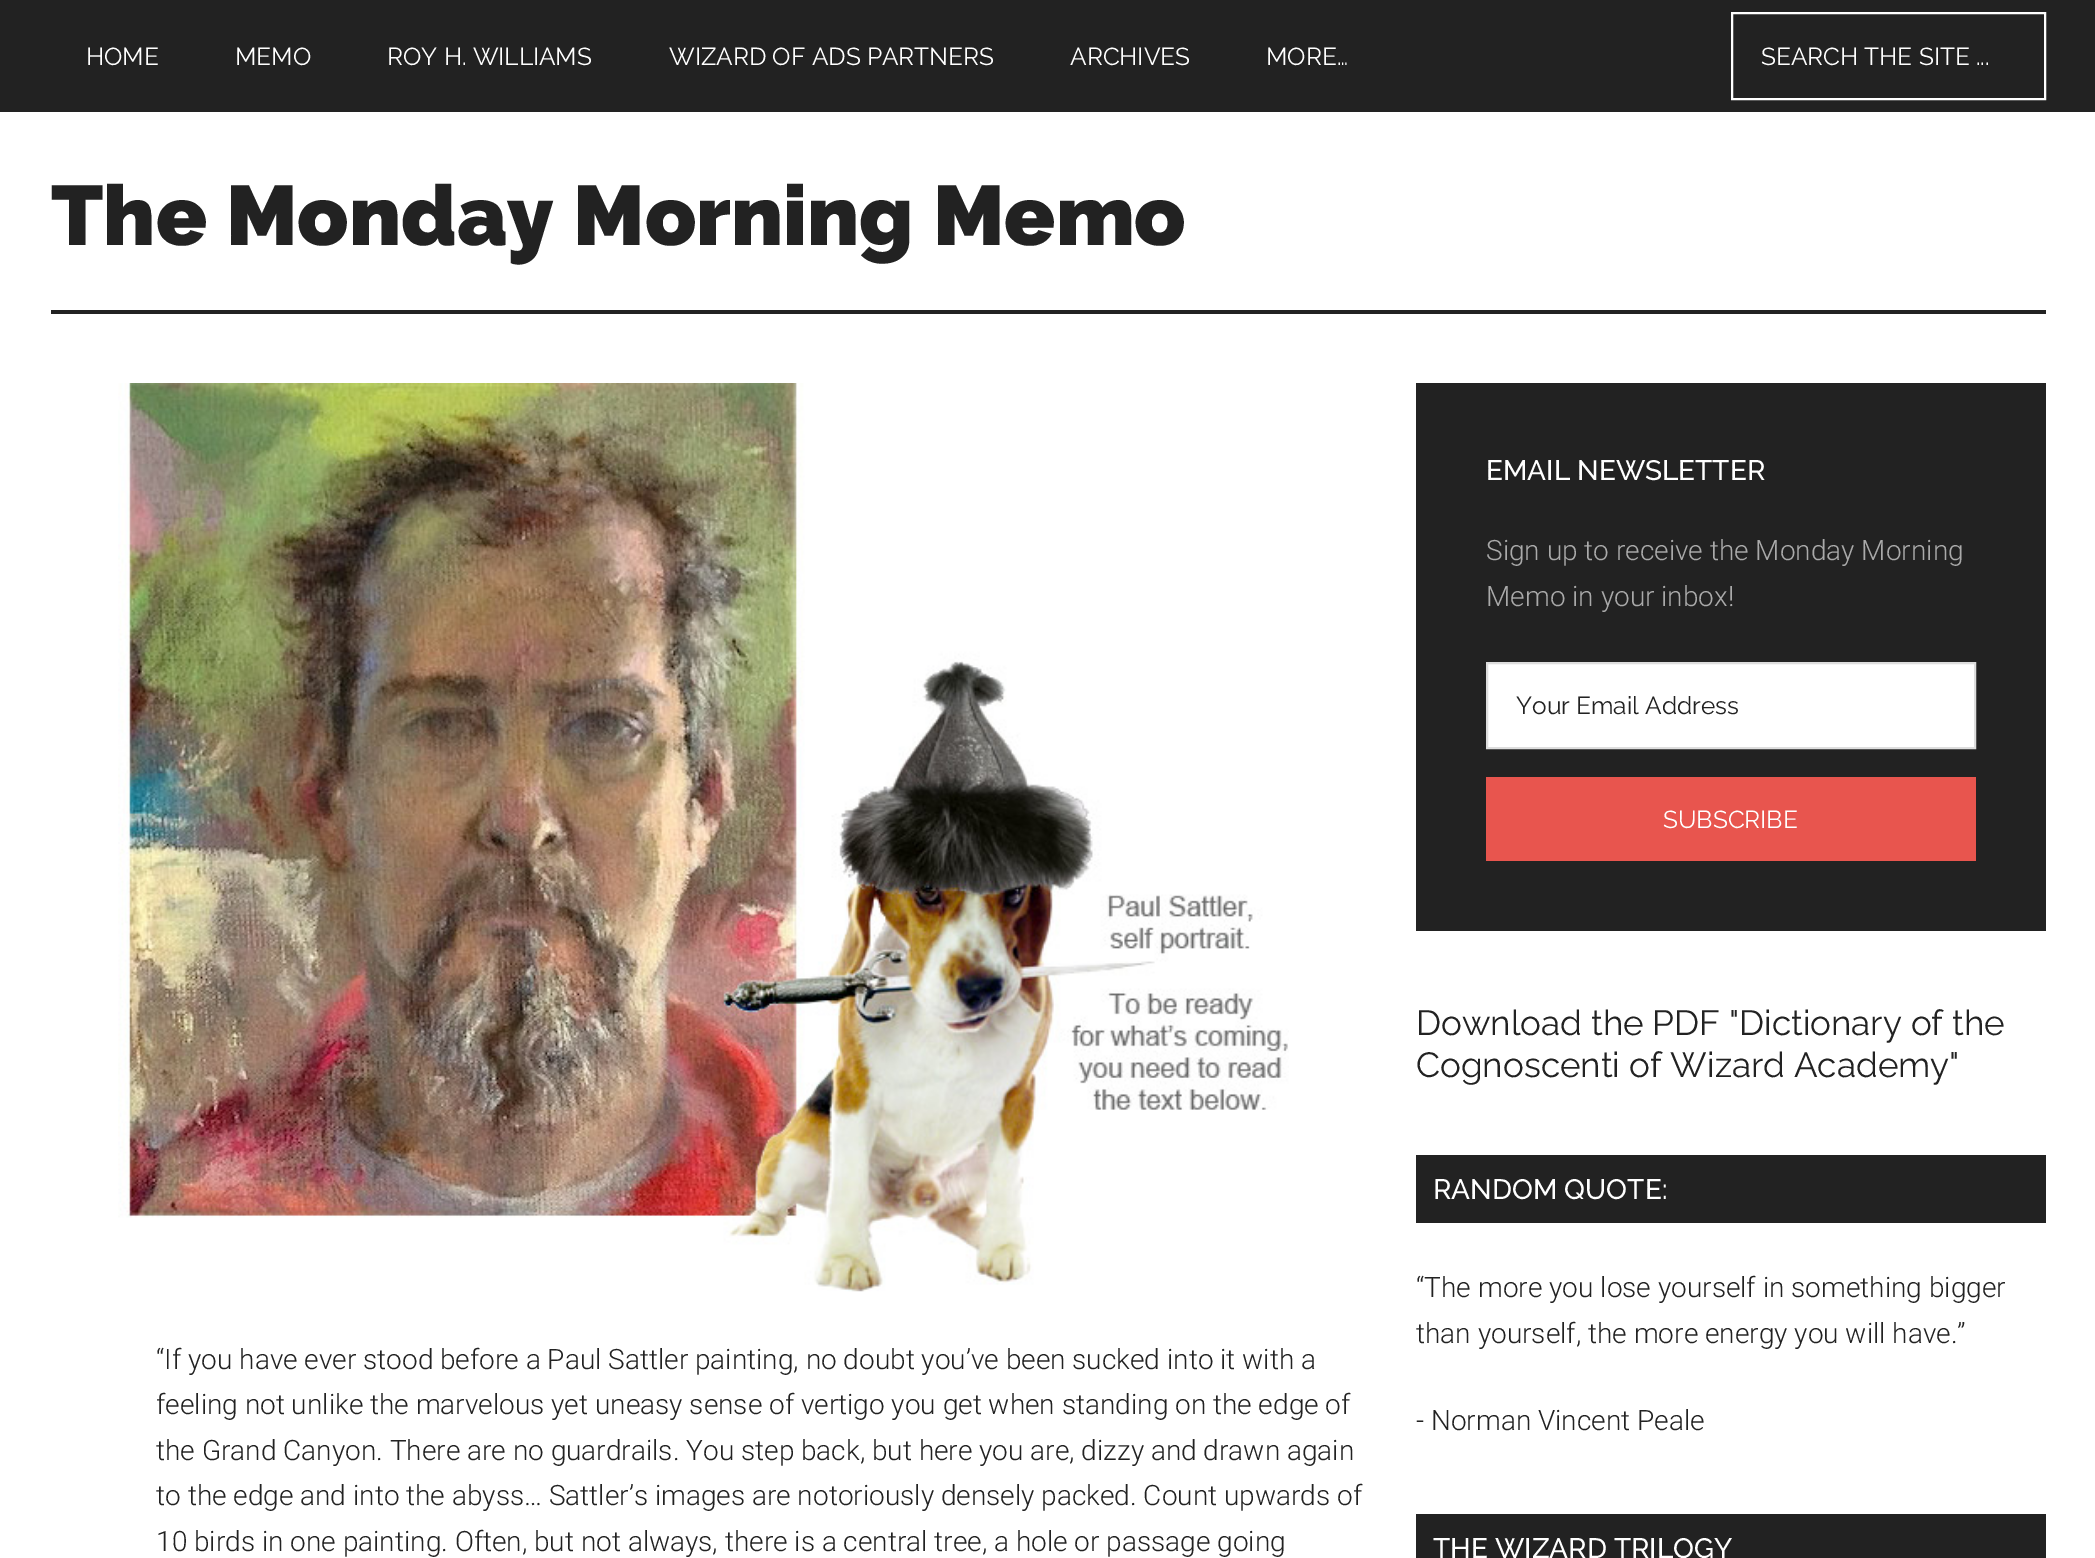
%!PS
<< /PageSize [2095 1558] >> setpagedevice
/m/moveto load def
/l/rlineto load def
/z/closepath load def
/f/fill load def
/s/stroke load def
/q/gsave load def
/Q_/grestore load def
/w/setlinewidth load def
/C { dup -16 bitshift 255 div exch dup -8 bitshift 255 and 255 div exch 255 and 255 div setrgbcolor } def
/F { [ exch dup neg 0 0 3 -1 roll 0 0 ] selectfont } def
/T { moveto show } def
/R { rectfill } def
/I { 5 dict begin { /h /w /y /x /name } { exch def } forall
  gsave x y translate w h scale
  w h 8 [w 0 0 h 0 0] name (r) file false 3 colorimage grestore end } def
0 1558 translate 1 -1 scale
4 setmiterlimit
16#FFFFFF C
0 0 2095 1558 R
16#222222 C
0 0 2095 112 R
/Raleway-Regular 24.5 F
16#FFFFFF C
(HOME) 86 65 T
(MEMO) 235 65 T
(ROY H. WILLIAMS) 387 65 T
(WIZARD OF ADS PARTNERS) 669 65 T
(ARCHIVES) 1070 65 T
(MORE…) 1266 65 T
2 w
1732 13 313 86 rectstroke
(SEARCH THE SITE ...) 1761 65 T
16#222222 C
51 310 1995 4 R
/Raleway-Black 84 F
(The Monday Morning Memo) 51 245 T
(1.rgb) 118 383 1171 909 I
/Roboto-Light 28 F
(“If you have ever stood before a Paul Sattler painting, no doubt you’ve been sucked into it with a) 156 1369 T
(feeling not unlike the marvelous yet uneasy sense of vertigo you get when standing on the edge of) 156 1414 T
(the Grand Canyon. There are no guardrails. You step back, but here you are, dizzy and drawn again) 156 1460 T
(to the edge and into the abyss… Sattler’s images are notoriously densely packed. Count upwards of) 156 1505 T
(10 birds in one painting. Often, but not always, there is a central tree, a hole or passage going) 156 1551 T
1416 383 630 548 R
/Raleway-Medium 28 F
16#FFFFFF C
(EMAIL NEWSLETTER) 1486 480 T
/Roboto-Light 28 F
16#AAAAAA C
(Sign up to receive the Monday Morning) 1486 560 T
(Memo in your inbox!) 1486 606 T
16#FFFFFF C
1487 663 m 488 0 l 0 85 l -488 0 l z q f Q_
16#DDDDDD C
s
/Raleway-Regular 24.5 F
16#222222 C
(Your Email Address) 1516 714 T
16#E8554E C
1486 777 490 84 R
16#FFFFFF C
(SUBSCRIBE) 1663 828 T
/Raleway-Regular 35 F
16#222222 C
(Download the PDF "Dictionary of the) 1416 1035 T
(Cognoscenti of Wizard Academy") 1416 1077 T
1416 1155 630 68 R
/Raleway-Medium 28 F
16#FFFFFF C
(RANDOM QUOTE:) 1433 1199 T
/Roboto-Light 28 F
16#222222 C
(“The more you lose yourself in something bigger) 1416 1297 T
(than yourself, the more energy you will have.”) 1416 1343 T
(- Norman Vincent Peale) 1416 1430 T
1416 1514 630 44 R
/Raleway-Medium 28 F
16#FFFFFF C
(THE WIZARD TRILOGY) 1433 1558 T
showpage
